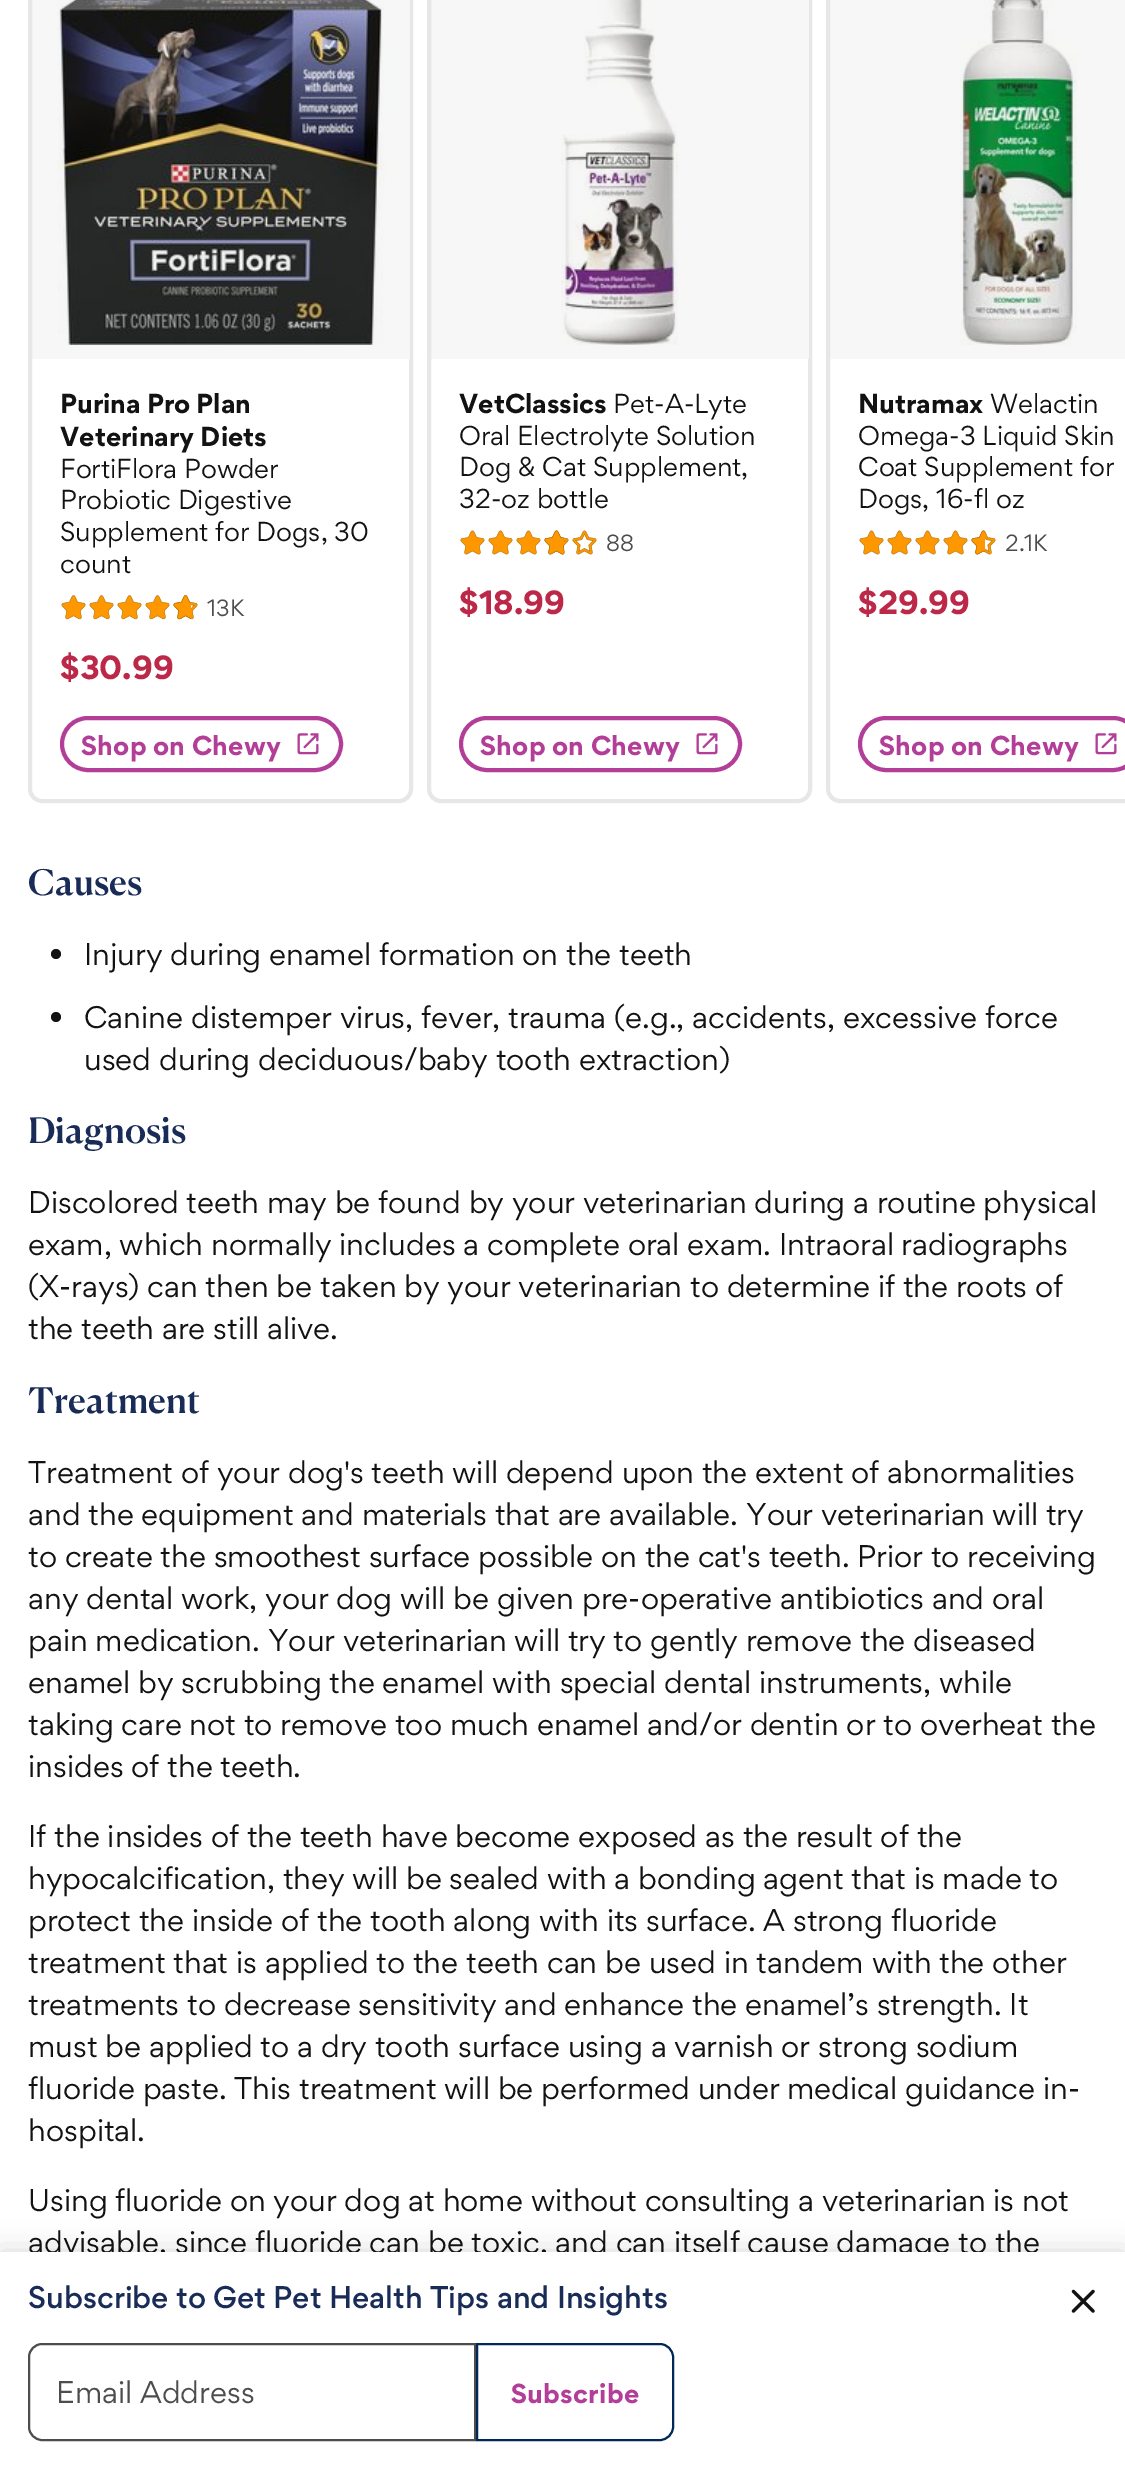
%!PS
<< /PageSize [1125 2468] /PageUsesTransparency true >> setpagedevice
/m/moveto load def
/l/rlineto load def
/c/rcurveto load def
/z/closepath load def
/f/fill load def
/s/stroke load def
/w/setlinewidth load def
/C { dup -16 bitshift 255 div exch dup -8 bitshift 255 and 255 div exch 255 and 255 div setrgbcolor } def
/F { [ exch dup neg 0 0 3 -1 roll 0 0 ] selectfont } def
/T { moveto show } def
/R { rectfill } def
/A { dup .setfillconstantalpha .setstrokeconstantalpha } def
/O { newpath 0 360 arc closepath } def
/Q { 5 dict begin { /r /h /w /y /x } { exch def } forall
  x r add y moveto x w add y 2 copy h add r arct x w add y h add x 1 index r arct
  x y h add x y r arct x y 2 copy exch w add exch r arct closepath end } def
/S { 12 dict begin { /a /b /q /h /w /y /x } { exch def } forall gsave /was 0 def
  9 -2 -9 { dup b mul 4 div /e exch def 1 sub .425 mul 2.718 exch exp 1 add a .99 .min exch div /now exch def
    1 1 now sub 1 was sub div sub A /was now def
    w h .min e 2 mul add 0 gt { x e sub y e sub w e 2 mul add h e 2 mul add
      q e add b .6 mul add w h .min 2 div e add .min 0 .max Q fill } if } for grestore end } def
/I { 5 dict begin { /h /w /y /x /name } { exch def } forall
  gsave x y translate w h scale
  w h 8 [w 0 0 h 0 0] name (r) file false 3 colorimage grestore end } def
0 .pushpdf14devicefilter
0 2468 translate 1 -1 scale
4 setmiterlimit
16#FFFFFF C
0 0 1125 2468 R
16#F7F7F7 C
830 0 295 359 R
16#E8E7E8 C
4 w
30 -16 381 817 12 Q s
16#FFFFFF C
409 0 1 359 R
(1.rgb) 57 0 338 345 I
0.03 A
16#000000 C
32 0 378 359 R
/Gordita-Bold 24.5 F
1 A
16#121212 C
(Purina Pro Plan) 60 413 T
(Veterinary Diets) 60 446 T
/Gordita-Regular 24.5 F
(FortiFlora Powder) 60 478 T
(Probiotic Digestive) 60 509 T
(Supplement for Dogs, 30) 60 541 T
(count) 60 573 T
(2.rgb) 61 595 25 25 I
(2.rgb) 89 595 25 25 I
(2.rgb) 117 595 25 25 I
(2.rgb) 145 595 25 25 I
(3.rgb) 173 595 25 25 I
(4.rgb) 173 595 18 25 I
/Gordita-Regular 21 F
16#4D4D4D C
(13K) 207 616 T
/Gordita-Bold 30 F
16#BC2848 C
($30.99) 60 679 T
16#B33E98 C
62 718 279 52 26 Q s
/Gordita-Bold 24.5 F
81 755 m .25 0 (Shop on Chewy) ashow
(5.rgb) 297 733 22 22 I
16#E8E7E8 C
429 -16 381 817 12 Q s
16#FFFFFF C
808 0 1 359 R
(6.rgb) 561 0 117 345 I
0.03 A
16#000000 C
431 0 378 359 R
1 A
16#121212 C
(VetClassics) 459 413 T
/Gordita-Regular 24.5 F
(Pet-A-Lyte) 613 413 T
(Oral Electrolyte Solution) 459 445 T
(Dog & Cat Supplement,) 459 476 T
(32-oz bottle) 459 508 T
(7.rgb) 460 530 25 25 I
(7.rgb) 488 530 25 25 I
(7.rgb) 516 530 25 25 I
(8.rgb) 544 530 25 25 I
(9.rgb) 544 530 20 25 I
(8.rgb) 572 530 25 25 I
/Gordita-Regular 21 F
16#4D4D4D C
(88) 606 551 T
/Gordita-Bold 30 F
16#BC2848 C
($18.99) 459 614 T
16#B33E98 C
461 718 279 52 26 Q s
/Gordita-Bold 24.5 F
480 755 m .25 0 (Shop on Chewy) ashow
(5.rgb) 696 733 22 22 I
16#E8E7E8 C
828 -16 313 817 12 Q s
(10.rgb) 960 0 117 345 I
16#121212 C
(Nutramax) 858 413 T
/Gordita-Regular 24.5 F
(Welactin) 990 413 T
(Omega-3 Liquid Skin) 858 445 T
(Coat Supplement for) 858 476 T
(Dogs, 16-fl oz) 858 508 T
(7.rgb) 859 530 25 25 I
(7.rgb) 887 530 25 25 I
(7.rgb) 915 530 25 25 I
(7.rgb) 943 530 25 25 I
(8.rgb) 971 530 25 25 I
(11.rgb) 971 530 14 25 I
/Gordita-Regular 21 F
16#4D4D4D C
(2.1K) 1005 551 T
/Gordita-Bold 30 F
16#BC2848 C
($29.99) 858 614 T
16#B33E98 C
860 718 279 52 26 Q s
/Gordita-Bold 24.5 F
879 755 m .25 0 (Shop on Chewy) ashow
(5.rgb) 1095 733 22 22 I
/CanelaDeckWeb-Medium 35 F
16#192C58 C
(Causes) 28 895 T
16#121212 C
56 954 5 O f
/Gordita-Regular 28 F
(Injury during enamel formation on the teeth) 84 965 T
56 1017 5 O f
(Canine distemper virus, fever, trauma \(e.g., accidents, excessive force) 84 1028 T
(used during deciduous/baby tooth extraction\)) 84 1070 T
/CanelaDeckWeb-Medium 35 F
16#192C58 C
(Diagnosis) 28 1143 T
/Gordita-Regular 28 F
16#121212 C
(Discolored teeth may be found by your veterinarian during a routine physical) 28 1213 T
(exam, which normally includes a complete oral exam. Intraoral radiographs) 28 1255 T
(\(X-rays\) can then be taken by your veterinarian to determine if the roots of) 28 1297 T
(the teeth are still alive.) 28 1339 T
/CanelaDeckWeb-Medium 35 F
16#192C58 C
(Treatment) 28 1413 T
/Gordita-Regular 28 F
16#121212 C
(Treatment of your dog's teeth will depend upon the extent of abnormalities) 28 1483 T
(and the equipment and materials that are available. Your veterinarian will try) 28 1525 T
(to create the smoothest surface possible on the cat's teeth. Prior to receiving) 28 1567 T
(any dental work, your dog will be given pre-operative antibiotics and oral) 28 1609 T
(pain medication. Your veterinarian will try to gently remove the diseased) 28 1651 T
(enamel by scrubbing the enamel with special dental instruments, while) 28 1693 T
(taking care not to remove too much enamel and/or dentin or to overheat the) 28 1735 T
(insides of the teeth.) 28 1777 T
(If the insides of the teeth have become exposed as the result of the) 28 1847 T
(hypocalcification, they will be sealed with a bonding agent that is made to) 28 1889 T
(protect the inside of the tooth along with its surface. A strong fluoride) 28 1931 T
(treatment that is applied to the teeth can be used in tandem with the other) 28 1973 T
(treatments to decrease sensitivity and enhance the enamel s strength. It) 28 2015 T
/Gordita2-Regular 28 F
(’) 847 2015 T
/Gordita-Regular 28 F
(must be applied to a dry tooth surface using a varnish or strong sodium) 28 2057 T
(fluoride paste. This treatment will be performed under medical guidance in-) 28 2099 T
(hospital.) 28 2141 T
(Using fluoride on your dog at home without consulting a veterinarian is not) 28 2211 T
(advisable, since fluoride can be toxic, and can itself cause damage to the) 28 2253 T
16#000000 C
0 2252 1125 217 0 14 .15 S
16#FFFFFF C
0 2252 1125 216 R
/Gordita-Medium 28 F
16#192C58 C
(Subscribe to Get Pet Health Tips and Insights) 28 2308 T
16#4D4D4D C
2 w
42 2344 m 433 0 l 0 96 l -433 0 l -7 0 -13 -6 -13 -13 c 0 -70 l 0 -7 6 -13 13 -13 c z s
/Gordita-Regular 28 F
(Email Address) 56 2403 T
16#002957 C
477 2344 m 183 0 l 7 0 13 6 13 13 c 0 70 l 0 7 -6 13 -13 13 c -183 0 l z s
/Gordita-Bold 24.5 F
16#B33E98 C
511 2403 m .25 0 (Subscribe) ashow
(12.rgb) 1071 2289 24 24 I
.poppdf14devicefilter showpage
